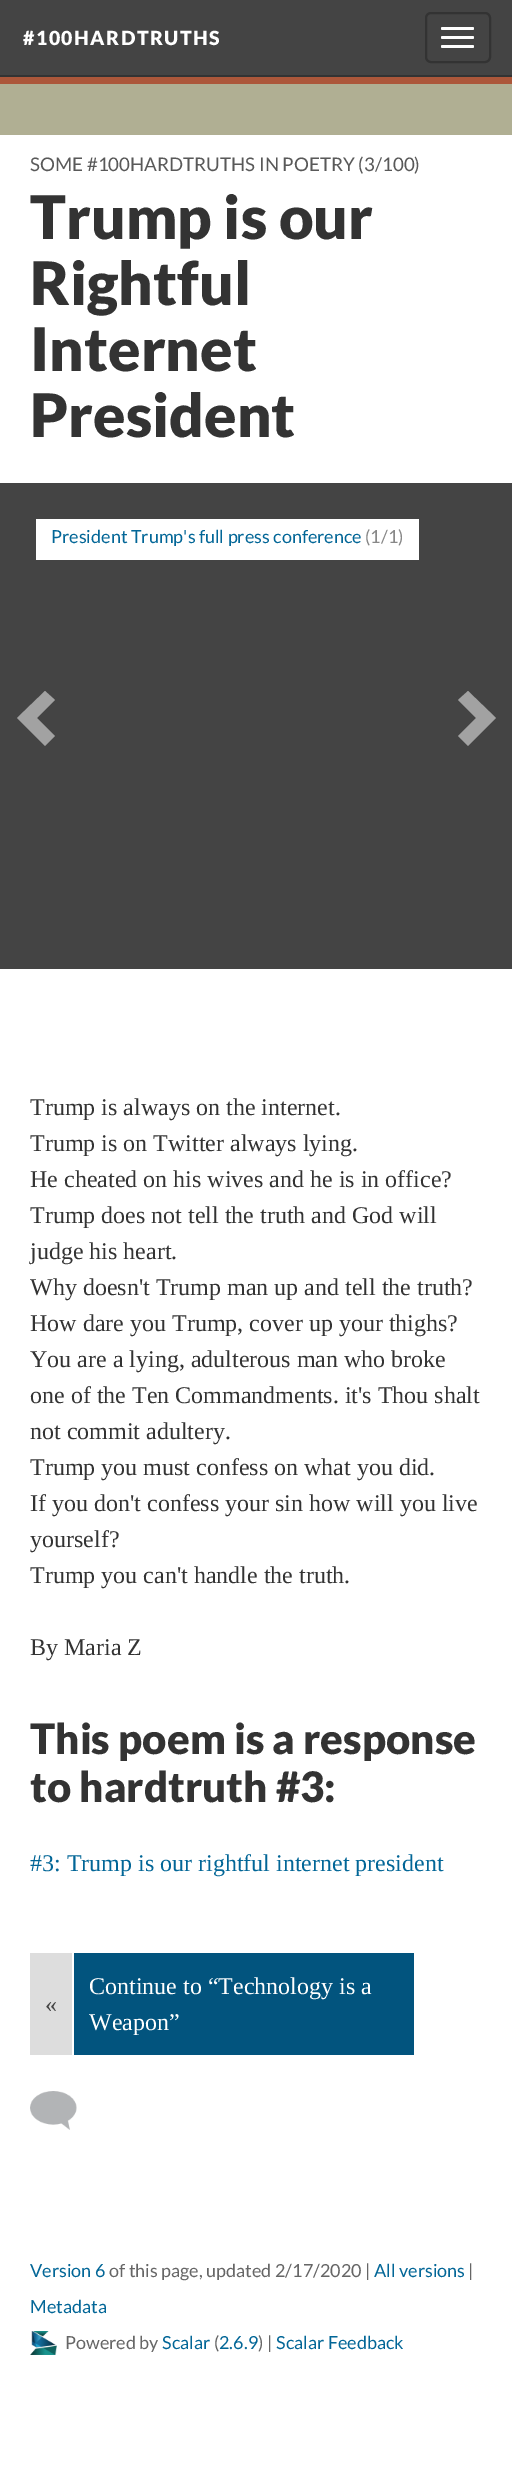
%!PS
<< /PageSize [512 2486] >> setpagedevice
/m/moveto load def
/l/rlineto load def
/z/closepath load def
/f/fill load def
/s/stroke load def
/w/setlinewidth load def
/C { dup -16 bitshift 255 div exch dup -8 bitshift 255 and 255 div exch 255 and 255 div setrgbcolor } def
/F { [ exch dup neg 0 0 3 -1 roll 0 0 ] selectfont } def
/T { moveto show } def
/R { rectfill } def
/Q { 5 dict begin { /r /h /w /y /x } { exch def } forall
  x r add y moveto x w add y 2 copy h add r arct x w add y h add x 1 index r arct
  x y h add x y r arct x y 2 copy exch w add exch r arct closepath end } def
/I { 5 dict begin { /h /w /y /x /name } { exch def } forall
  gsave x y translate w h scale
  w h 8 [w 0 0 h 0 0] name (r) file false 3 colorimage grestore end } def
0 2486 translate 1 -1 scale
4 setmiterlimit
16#FFFFFF C
0 0 512 2486 R
16#444444 C
0 0 512 75 R
16#333333 C
0 75 512 2 R
/Lato-Black 19.5 F
16#FFFFFF C
23 45 m 1.5 0 (#100HARDTRUTHS) ashow
16#333333 C
2 w
426 13 64 49 5 Q s
16#FFFFFF C
441 27 33 3 1.5 Q f
441 36 33 3 1.5 Q f
441 45 33 3 1.5 Q f
16#AC573A C
0 77 512 7 R
16#B0AF93 C
0 84 512 51 R
/Lato-Regular 18.75 F
16#595959 C
(SOME #100HARDTRUTHS IN POETRY \(3/100\)) 30 171 T
/Lato-Black 60 F
16#333333 C
(Trump is our) 30 239 T
(Rightful) 30 305 T
(Internet) 30 371 T
(President) 30 437 T
16#444444 C
0 483 512 486 R
16#FFFFFF C
36 519 383 41 R
/Lato-Regular 18 F
16#026697 C
(President Trump's full press conference) 51 543 T
16#888888 C
(\(1/1\)) 365 543 T
16#A2A2A2 C
55 700 m -18 18 l 18 18 l -10 10 l -28 -28 l 28 -27 l z f
496 718 m -28 28 l -10 -10 l 18 -18 l -18 -18 l 10 -9 l z f
/LiberationSerif-Regular 24 F
16#333333 C
(Trump is always on the internet.) 30 1115 T
(Trump is on Twitter always lying.) 30 1151 T
(He cheated on his wives and he is in office?) 30 1187 T
(Trump does not tell the truth and God will) 30 1223 T
(judge his heart.) 30 1259 T
(Why doesn't Trump man up and tell the truth?) 30 1295 T
(How dare you Trump, cover up your thighs?) 30 1331 T
(You are a lying, adulterous man who broke) 30 1367 T
(one of the Ten Commandments. it's Thou shalt) 30 1403 T
(not commit adultery.) 30 1439 T
(Trump you must confess on what you did.) 30 1475 T
(If you don't confess your sin how will you live) 30 1511 T
(yourself?) 30 1547 T
(Trump you can't handle the truth.) 30 1583 T
(By Maria Z) 30 1655 T
/Lato-Black 42 F
(This poem is a response) 30 1754 T
(to hardtruth #3:) 30 1802 T
/LiberationSerif-Regular 24 F
16#026697 C
(#3: Trump is our rightful internet president) 30 1871 T
16#DDDDDD C
30 1953 42 102 R
16#444444 C
(«) 45 2012 T
16#02547E C
74 1953 340 102 R
16#FFFFFF C
(Continue to “Technology is a) 89 1994 T
(Weapon”) 89 2030 T
(1.rgb) 30 2091 47 39 I
/Lato-Regular 18 F
16#026697 C
(Version 6) 30 2277 T
16#666666 C
(of this page, updated 2/17/2020 |) 109 2277 T
16#026697 C
(All versions) 374 2277 T
16#666666 C
(|) 468 2277 T
16#026697 C
(Metadata) 30 2313 T
(2.rgb) 30 2331 27 24 I
16#666666 C
(Powered by) 65 2349 T
16#026697 C
(Scalar) 162 2349 T
16#666666 C
(\() 214 2349 T
16#026697 C
(2.6.9) 219 2349 T
16#666666 C
(\) |) 258 2349 T
16#026697 C
(Scalar Feedback) 276 2349 T
showpage
